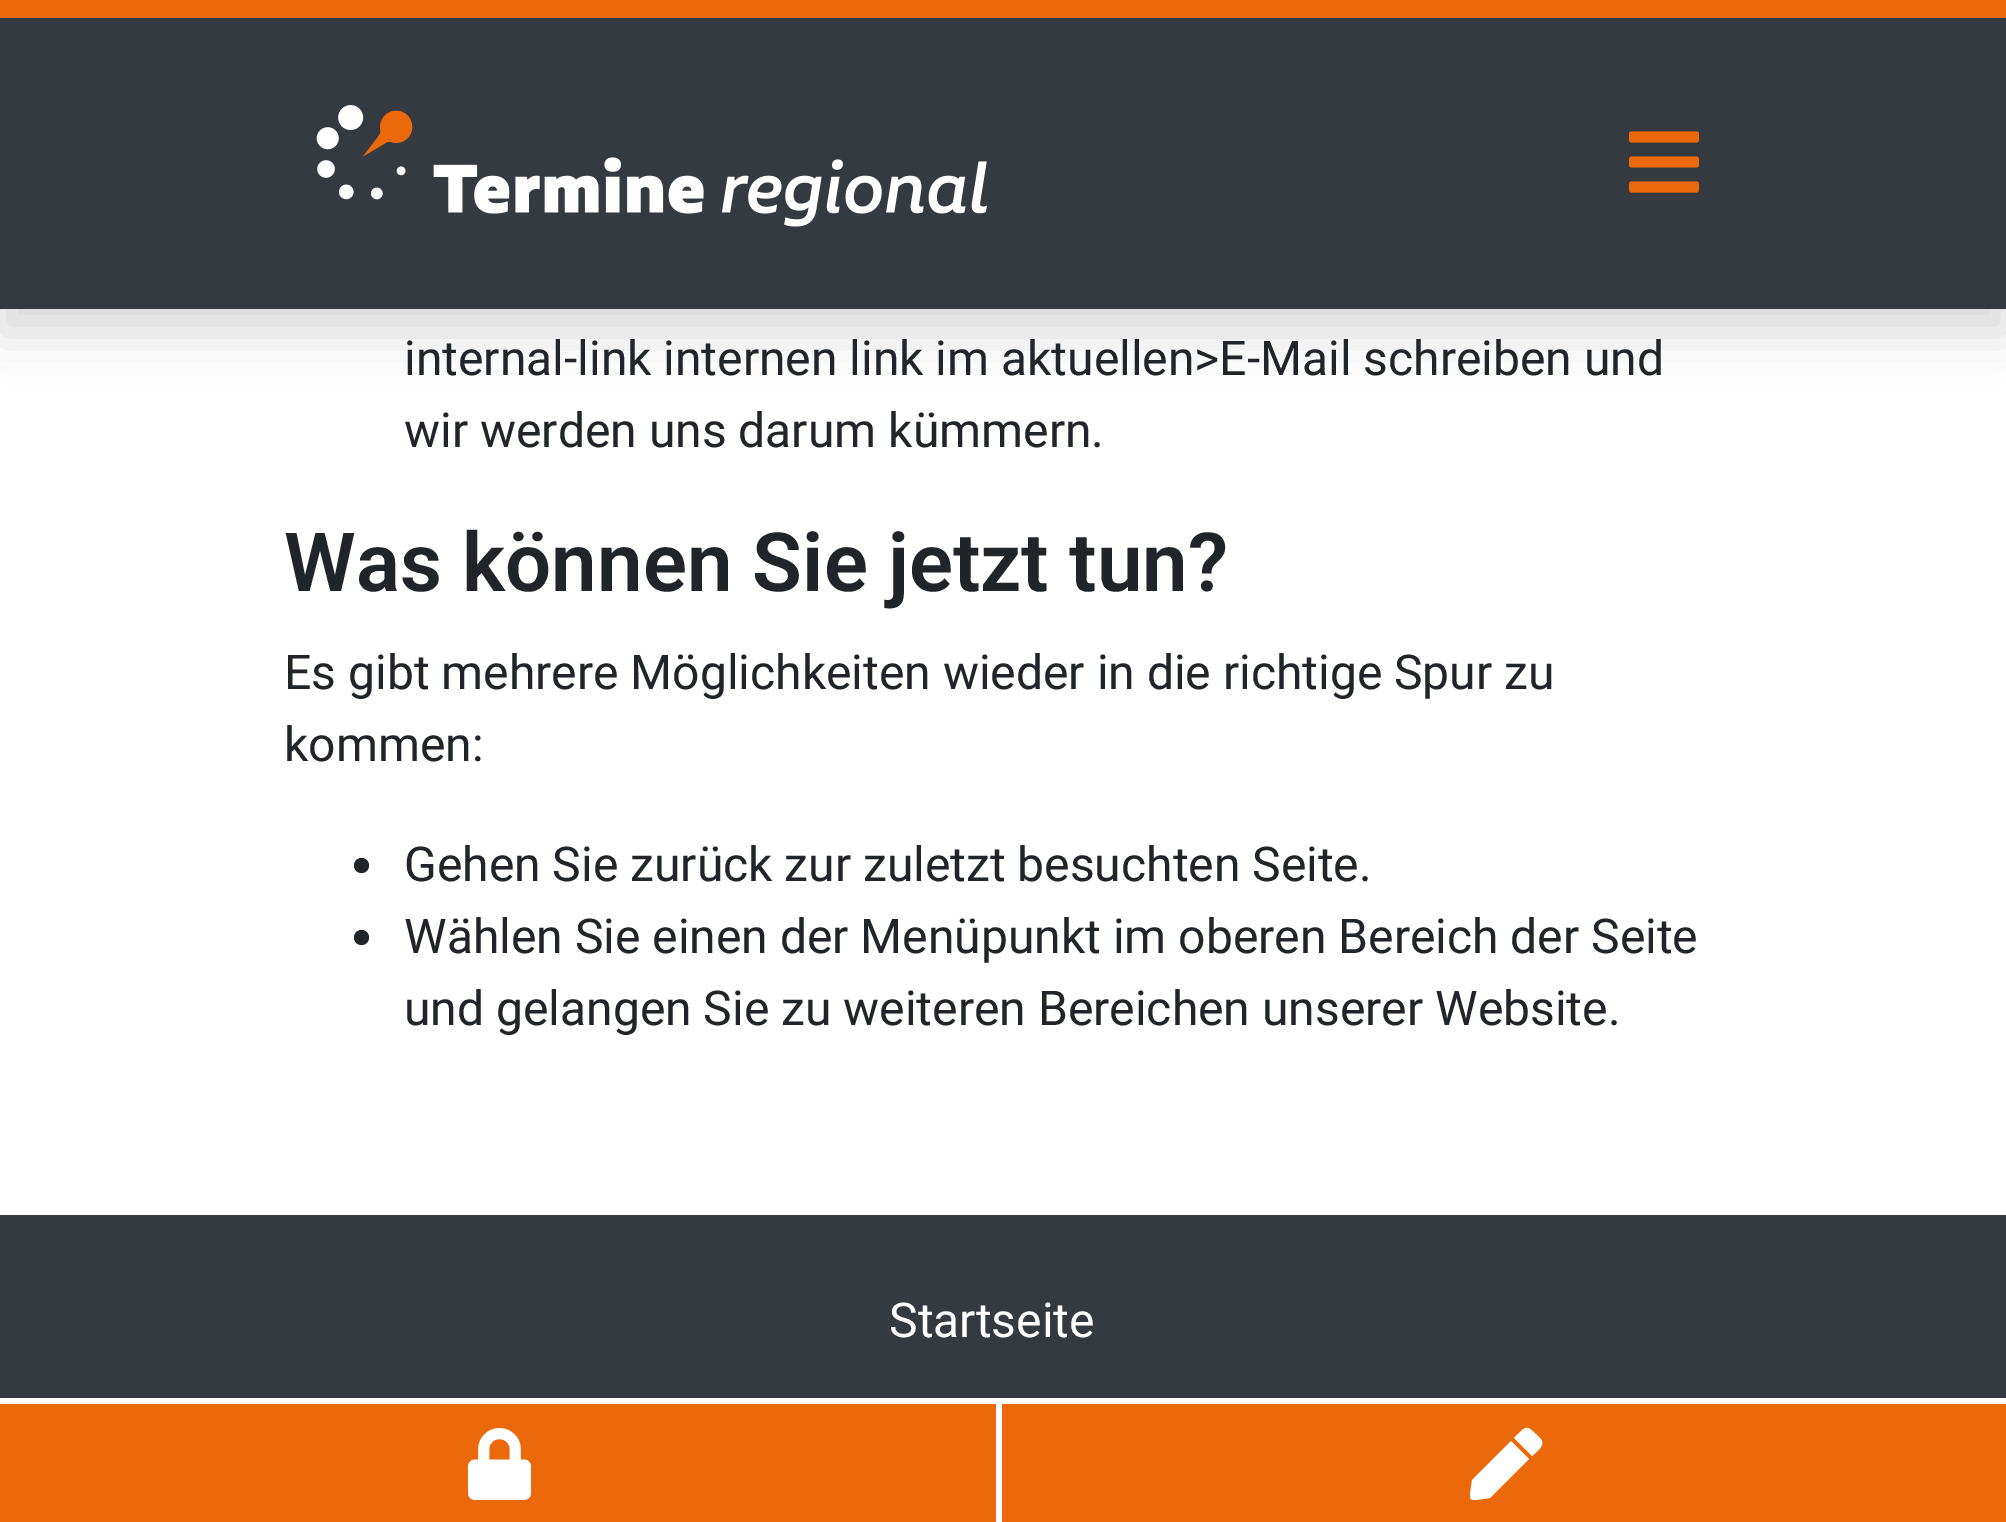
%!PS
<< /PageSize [2006 1522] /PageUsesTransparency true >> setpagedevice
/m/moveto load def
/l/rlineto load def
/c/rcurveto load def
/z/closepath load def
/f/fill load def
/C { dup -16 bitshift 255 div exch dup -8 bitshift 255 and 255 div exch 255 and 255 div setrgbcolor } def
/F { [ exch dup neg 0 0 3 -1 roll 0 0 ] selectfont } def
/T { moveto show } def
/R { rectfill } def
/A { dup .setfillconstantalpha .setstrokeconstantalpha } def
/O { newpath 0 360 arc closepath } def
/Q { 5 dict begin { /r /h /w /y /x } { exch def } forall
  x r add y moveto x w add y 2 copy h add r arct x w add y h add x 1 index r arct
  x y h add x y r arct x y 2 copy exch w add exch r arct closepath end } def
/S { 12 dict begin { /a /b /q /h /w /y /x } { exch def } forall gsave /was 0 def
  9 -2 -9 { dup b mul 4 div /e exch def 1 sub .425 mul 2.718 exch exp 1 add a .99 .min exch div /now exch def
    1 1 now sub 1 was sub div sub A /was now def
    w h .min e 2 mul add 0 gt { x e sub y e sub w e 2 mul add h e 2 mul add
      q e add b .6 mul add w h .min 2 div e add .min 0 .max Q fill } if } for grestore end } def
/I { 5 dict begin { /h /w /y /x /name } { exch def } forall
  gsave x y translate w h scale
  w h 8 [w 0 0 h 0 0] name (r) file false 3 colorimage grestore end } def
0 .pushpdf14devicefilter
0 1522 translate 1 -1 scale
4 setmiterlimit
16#FFFFFF C
0 0 2006 1522 R
16#000000 C
0 24 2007 309 0 24 .15 S
16#EB690B C
0 0 2006 18 R
16#343A40 C
0 18 2006 291 R
(1.rgb) 316 105 671 122 I
(2.rgb) 1629 131 70 62 I
/Roboto-Regular 48 F
16#212529 C
(internal-link internen link im aktuellen>E-Mail schreiben und) 404 375 T
(wir werden uns darum kümmern.) 404 447 T
/Roboto-SemiBold 81.7 F
(Was können Sie jetzt tun?) 284 591 T
/Roboto-Regular 48 F
(Es gibt mehrere Möglichkeiten wieder in die richtige Spur zu) 284 689 T
(kommen:) 284 761 T
361.5 865.5 7.5 O f
(Gehen Sie zurück zur zuletzt besuchten Seite.) 404 881 T
361.5 937.5 7.5 O f
(Wählen Sie einen der Menüpunkt im oberen Bereich der Seite) 404 953 T
(und gelangen Sie zu weiteren Bereichen unserer Website.) 404 1025 T
16#343A40 C
0 1215 2006 183 R
16#FFFFFF C
(Startseite) 889 1337 T
16#EB690B C
0 1404 996 118 R
(3.rgb) 468 1428 63 72 I
1002 1404 1004 118 R
16#FFFFFF C
1511 1441 m 18 18 l -39 39 l -24 3 -21 6 -18 -18 c z 1540 1438 m 7 7 -4 14 -8 18 c -18 -18 l 14 -14 12 -13 26 0 c z f
.poppdf14devicefilter showpage
